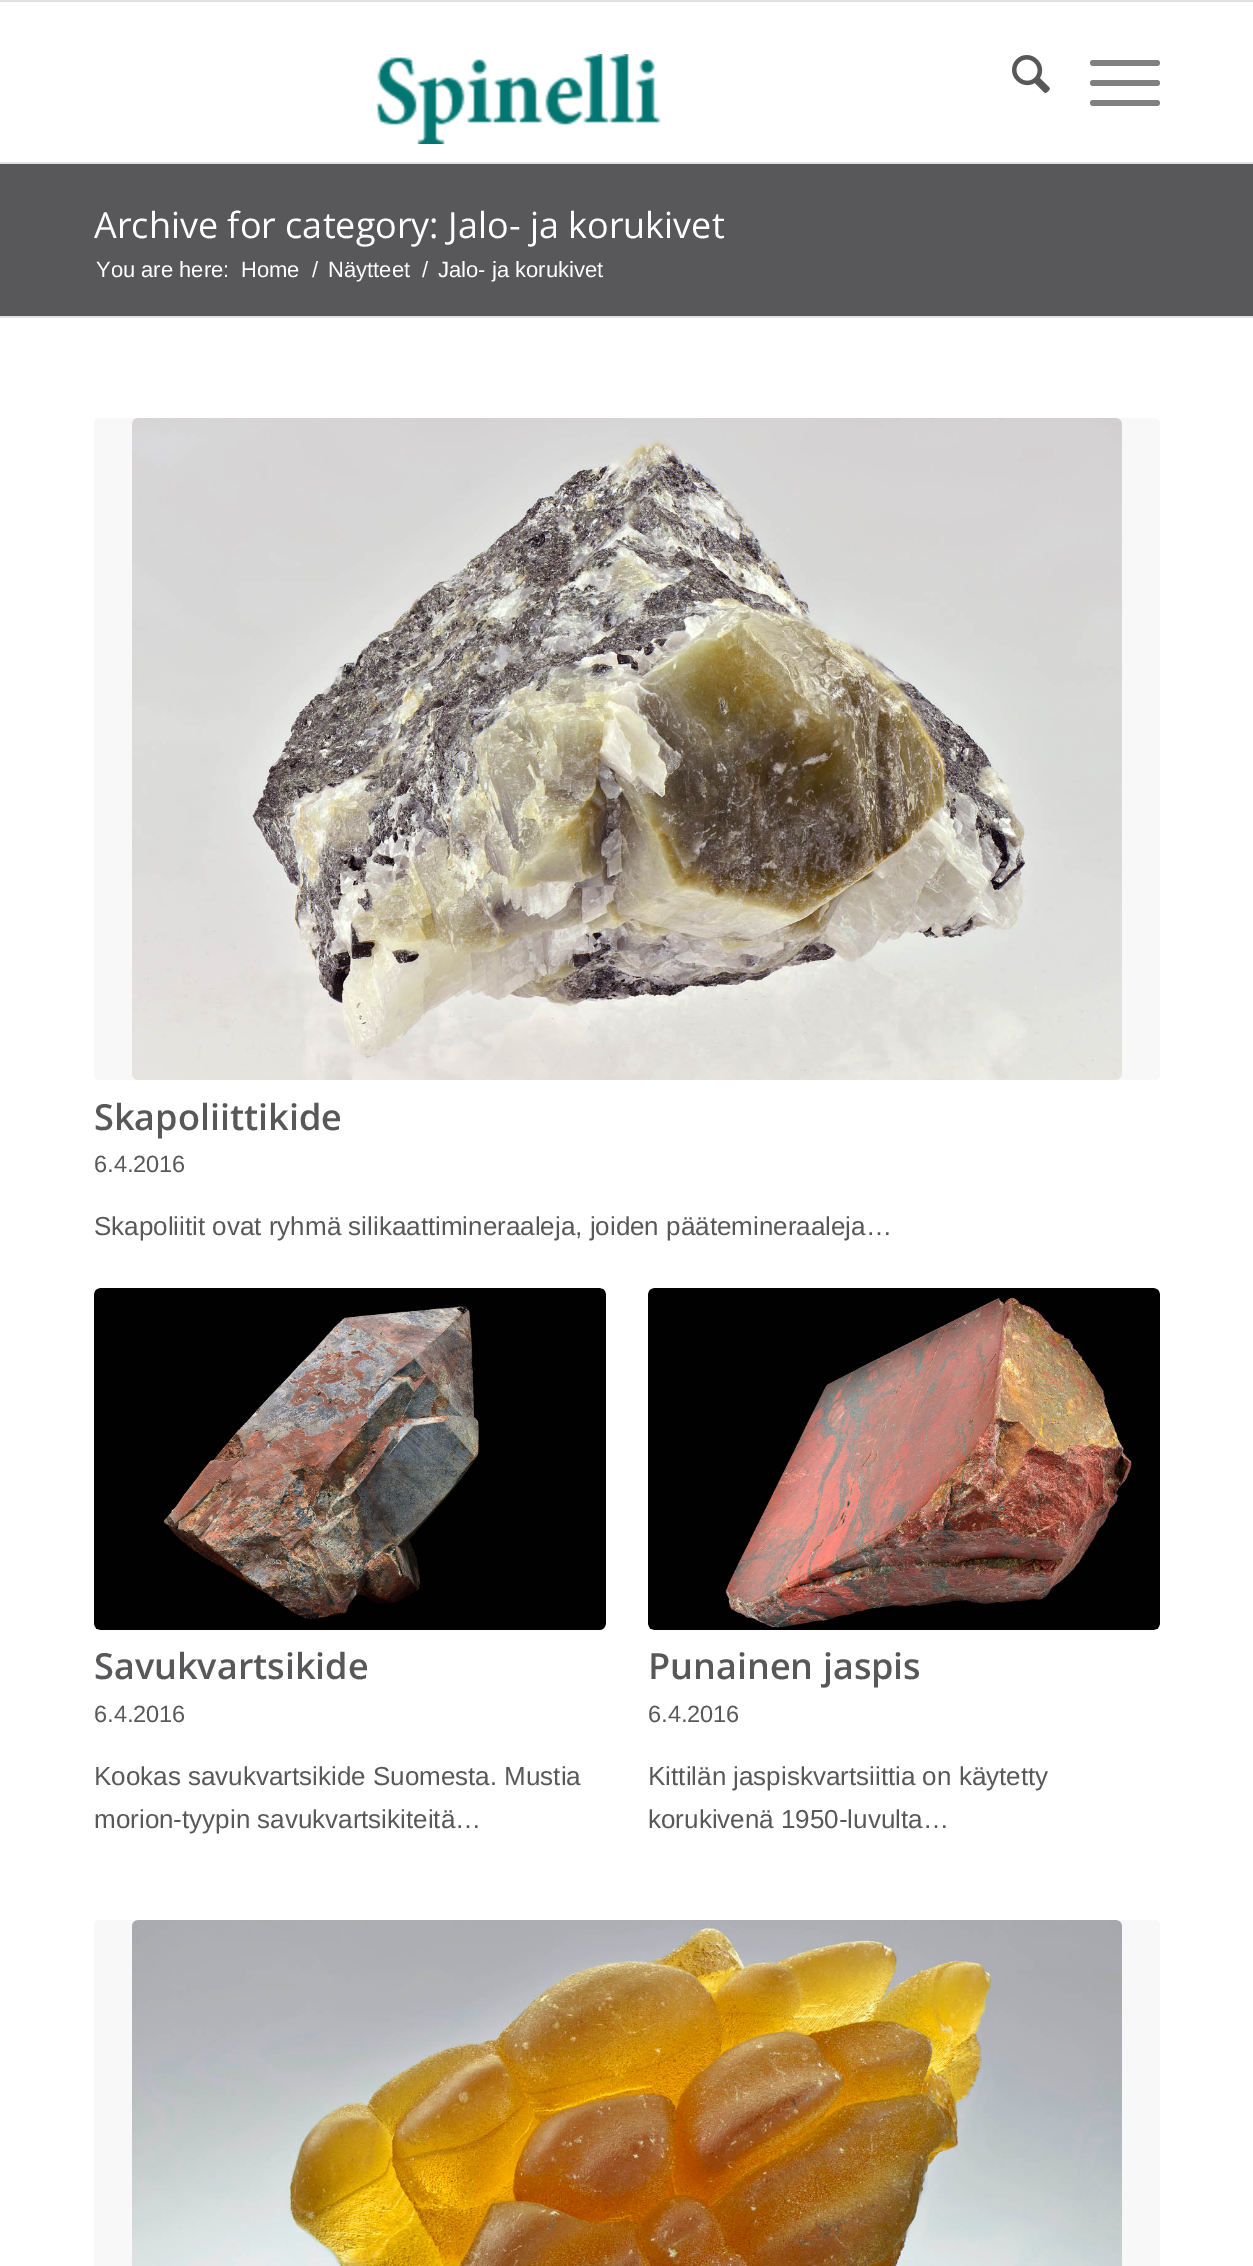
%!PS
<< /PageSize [1253 2266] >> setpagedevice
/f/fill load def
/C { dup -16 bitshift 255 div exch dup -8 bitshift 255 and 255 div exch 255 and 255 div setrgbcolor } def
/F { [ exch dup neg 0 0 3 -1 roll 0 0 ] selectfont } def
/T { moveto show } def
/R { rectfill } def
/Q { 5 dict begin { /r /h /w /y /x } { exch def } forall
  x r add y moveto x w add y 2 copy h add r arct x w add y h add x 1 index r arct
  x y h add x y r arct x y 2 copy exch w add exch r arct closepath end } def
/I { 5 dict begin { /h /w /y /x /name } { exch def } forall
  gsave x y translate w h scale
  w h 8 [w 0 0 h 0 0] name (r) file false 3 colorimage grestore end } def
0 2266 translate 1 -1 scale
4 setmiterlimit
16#FFFFFF C
0 0 1253 2266 R
16#E1E1E1 C
0 0 1253 2 R
0 162 1253 2 R
(1.rgb) 376 54 285 90 I
(2.rgb) 1012 55 38 38 I
16#808080 C
1090 80 70 6 3 Q f
1090 60 70 6 3 Q f
1090 100 70 6 3 Q f
16#58585A C
0 164 1253 152 R
/OpenSans-Regular 36 F
16#FFFFFF C
(Archive for category: Jalo- ja korukivet) 94 238 T
/LiberationSans-Regular 22 F
(You are here:) 96 277 T
(Home) 241 277 T
(/) 312 277 T
(Näytteet) 328 277 T
(/) 422 277 T
(Jalo- ja korukivet) 438 277 T
16#E1E1E1 C
0 316 1253 2 R
16#F8F8F8 C
94 418 1066 662 6 Q f
(3.rgb) 132 418 990 662 I
/OpenSans-SemiBold 36 F
16#58585A C
(Skapoliittikide) 94 1130 T
/LiberationSans-Regular 23.5 F
(6.4.2016) 94 1172 T
/LiberationSans-Regular 26 F
(Skapoliitit ovat ryhmä silikaattimineraaleja, joiden päätemineraaleja…) 94 1235 T
16#F8F8F8 C
94 1288 512 342 6 Q f
(4.rgb) 94 1288 512 342 I
/OpenSans-SemiBold 36 F
16#58585A C
(Savukvartsikide) 94 1679 T
/LiberationSans-Regular 23.5 F
(6.4.2016) 94 1722 T
/LiberationSans-Regular 26 F
(Kookas savukvartsikide Suomesta. Mustia) 94 1785 T
(morion-tyypin savukvartsikiteitä…) 94 1828 T
16#F8F8F8 C
648 1288 512 342 6 Q f
(5.rgb) 648 1288 512 342 I
/OpenSans-SemiBold 36 F
16#58585A C
(Punainen jaspis) 648 1679 T
/LiberationSans-Regular 23.5 F
(6.4.2016) 648 1722 T
/LiberationSans-Regular 26 F
(Kittilän jaspiskvartsiittia on käytetty) 648 1785 T
(korukivenä 1950-luvulta…) 648 1828 T
16#F8F8F8 C
94 1920 1066 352 6 Q f
(6.rgb) 132 1920 990 346 I
showpage
